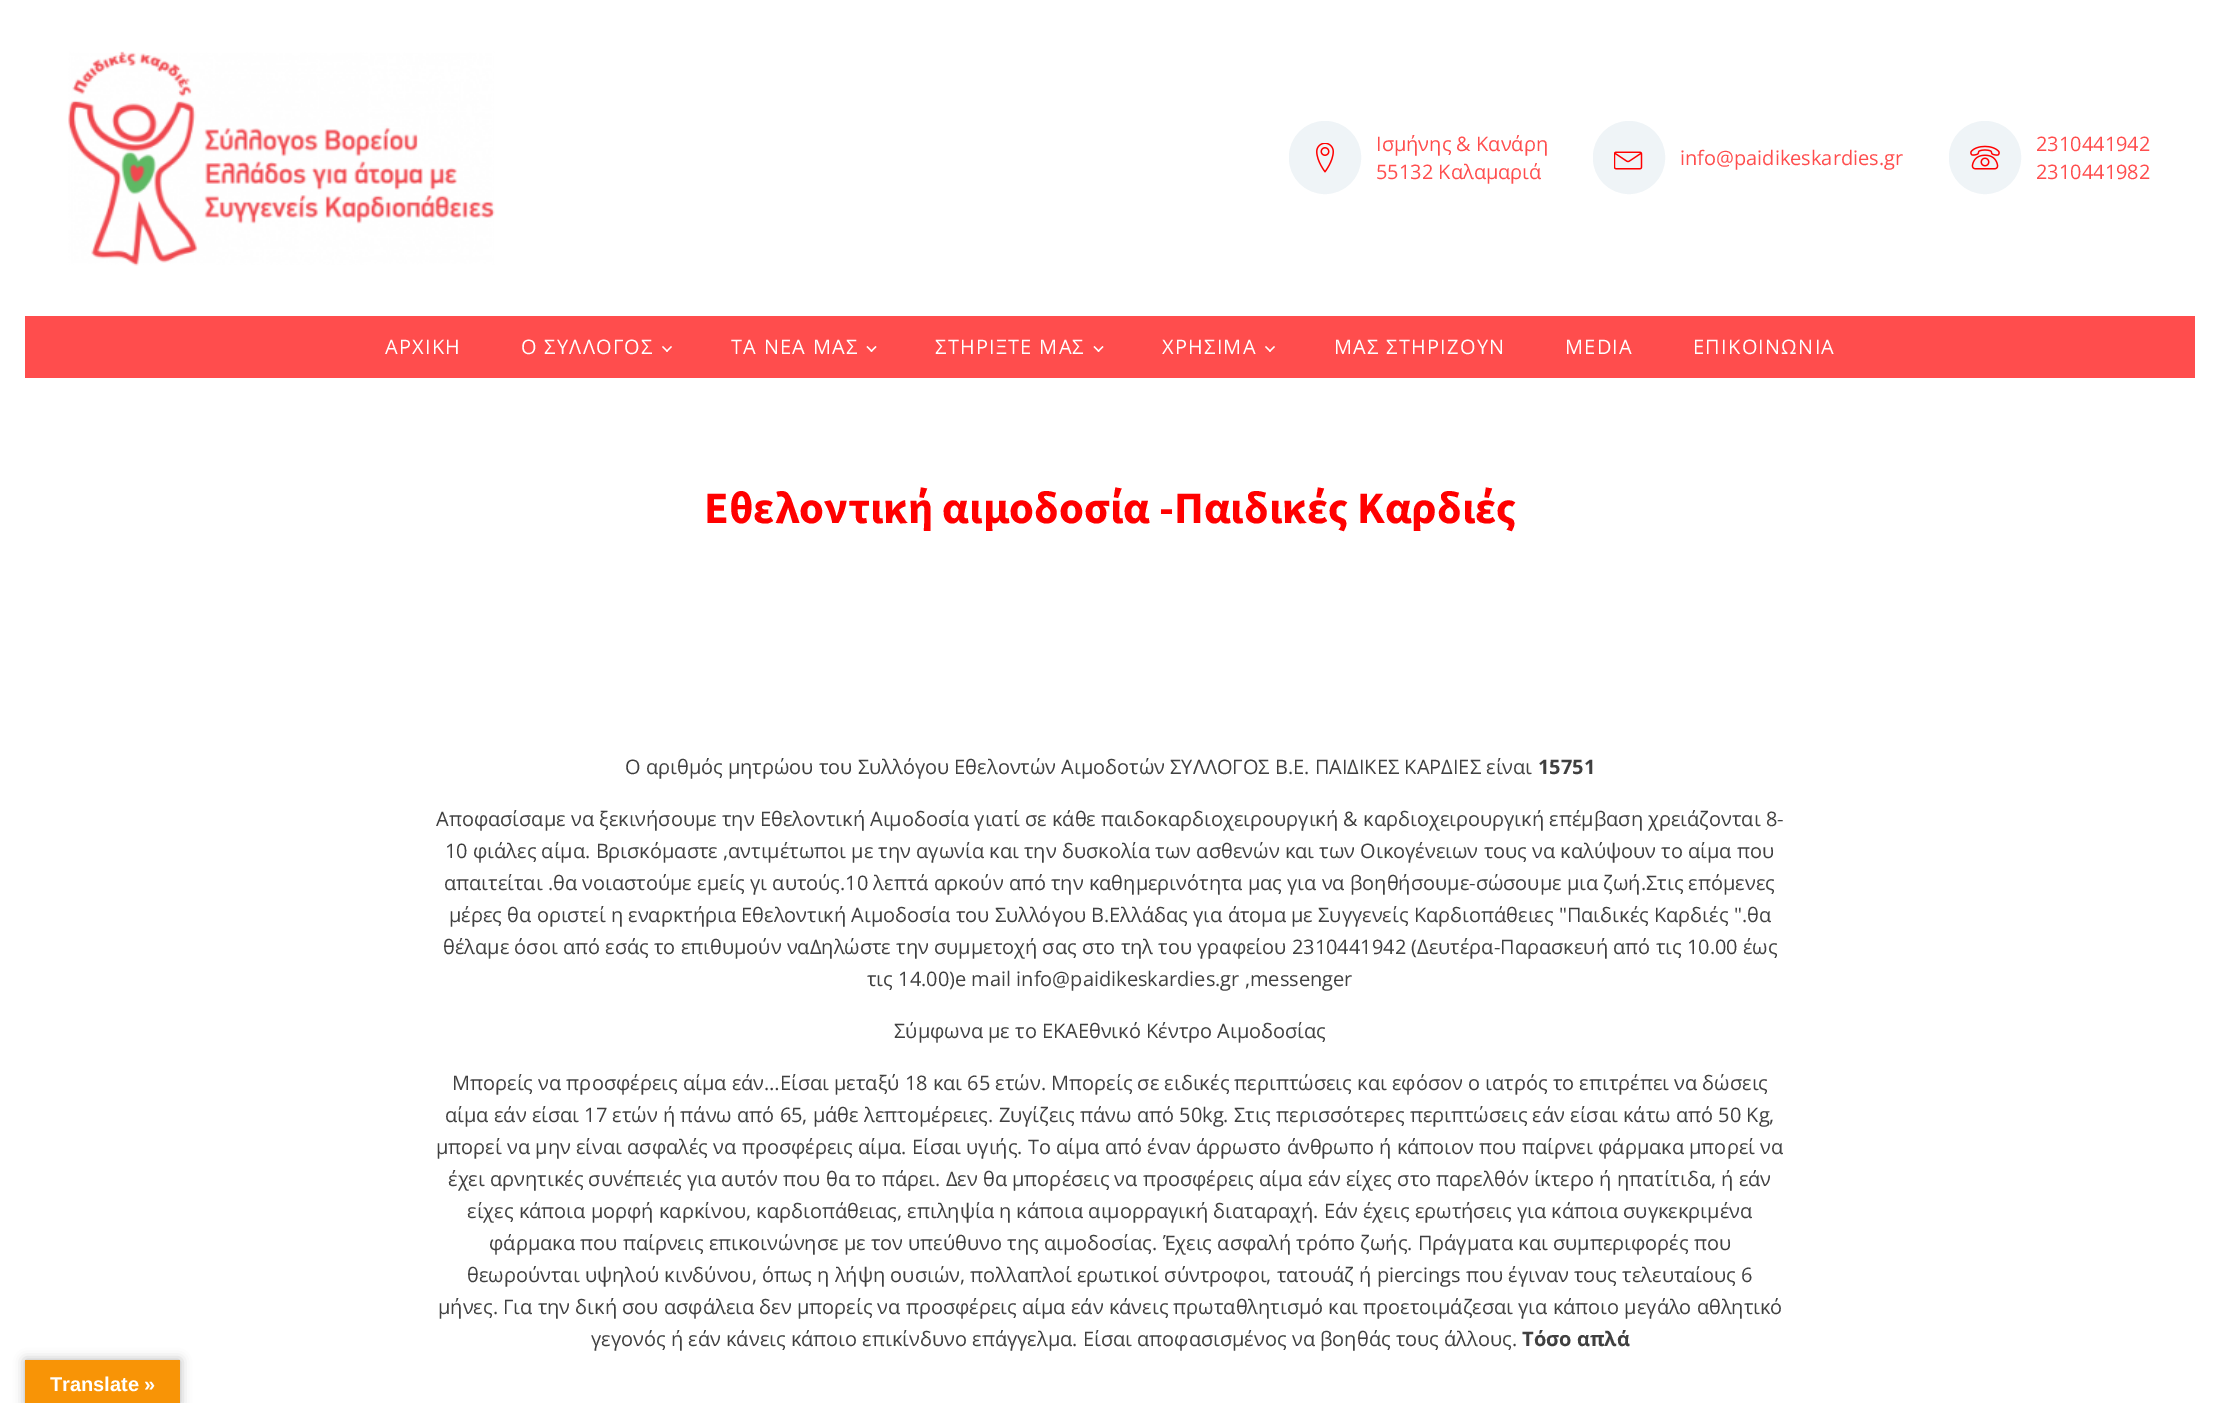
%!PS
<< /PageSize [2220 1403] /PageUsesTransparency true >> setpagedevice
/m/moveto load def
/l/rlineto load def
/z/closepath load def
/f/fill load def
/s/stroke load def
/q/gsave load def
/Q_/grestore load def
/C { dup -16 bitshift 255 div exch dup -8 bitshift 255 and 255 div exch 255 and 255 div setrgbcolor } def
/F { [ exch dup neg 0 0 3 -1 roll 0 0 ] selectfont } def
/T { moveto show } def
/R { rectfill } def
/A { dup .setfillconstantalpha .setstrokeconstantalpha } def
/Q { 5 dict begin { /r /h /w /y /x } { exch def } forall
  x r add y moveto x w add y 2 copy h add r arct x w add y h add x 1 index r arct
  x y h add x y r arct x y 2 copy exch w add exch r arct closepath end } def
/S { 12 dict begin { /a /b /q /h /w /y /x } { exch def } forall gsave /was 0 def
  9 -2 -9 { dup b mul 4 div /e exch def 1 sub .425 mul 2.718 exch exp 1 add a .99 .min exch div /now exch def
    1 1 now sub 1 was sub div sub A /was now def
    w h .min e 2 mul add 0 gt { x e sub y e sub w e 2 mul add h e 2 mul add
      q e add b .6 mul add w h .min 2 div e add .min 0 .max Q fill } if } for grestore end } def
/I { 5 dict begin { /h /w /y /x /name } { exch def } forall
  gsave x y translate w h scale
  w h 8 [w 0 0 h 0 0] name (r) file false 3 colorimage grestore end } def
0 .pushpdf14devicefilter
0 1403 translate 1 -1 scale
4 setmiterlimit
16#FFFFFF C
0 0 2220 1403 R
(1.rgb) 68 51 427 215 I
16#EFF4F7 C
1289.5 121.5 71 72 35.5 Q q f Q_
s
(2.rgb) 1316 143 18 30 I
/OpenSans-Regular 20 F
16#FF4D4D C
(Ισμήνης & Κανάρη) 1376 151 T
(55132 Καλαμαριά) 1376 179 T
16#EFF4F7 C
1593.5 121.5 71 72 35.5 Q q f Q_
s
(3.rgb) 1614 151 29 19 I
16#FF4D4D C
(info@paidikeskardies.gr) 1680 165 T
16#EFF4F7 C
1949.5 121.5 71 72 35.5 Q q f Q_
s
(4.rgb) 1970 145 30 25 I
16#FF4D4D C
(2310441942) 2036 151 T
(2310441982) 2036 179 T
25 316 2170 62 R
16#FFFFFF C
385 354 m 1.25 0 (ΑΡΧΙΚΗ) ashow
521 354 m 1.25 0 (Ο ΣΥΛΛΟΓΟΣ) ashow
672 347 m -5 5 l -1 -1 l 5 -5 l z f
668 351 m -1 1 l -5 -5 l 1 -1 l z f
731 354 m 1.25 0 (ΤΑ ΝΕΑ ΜΑΣ) ashow
876.5 347 m -5 5 l -1 -1 l 5 -5 l z f
872.5 351 m -1 1 l -5 -5 l 1 -1 l z f
935 354 m 1.25 0 (ΣΤΗΡΙΞΤΕ ΜΑΣ) ashow
1103.5 347 m -5 5 l -1 -1 l 5 -5 l z f
1099.5 351 m -1 1 l -5 -5 l 1 -1 l z f
1162 354 m 1.25 0 (ΧΡΗΣΙΜΑ) ashow
1275 347 m -5 5 l -1 -1 l 5 -5 l z f
1271 351 m -1 1 l -5 -5 l 1 -1 l z f
1334 354 m 1.25 0 (ΜΑΣ ΣΤΗΡΙΖΟΥΝ) ashow
1565 354 m 1.25 0 (MEDIA) ashow
1693 354 m 1.25 0 (ΕΠΙΚΟΙΝΩΝΙΑ) ashow
/SourceSansPro-Bold 45 F
16#FF0000 C
(Εθελοντική αιμοδοσία -Παιδικές Καρδιές) 704 523 T
/OpenSans-Regular 20 F
16#404040 C
(Ο αριθμός μητρώου του Συλλόγου Εθελοντών Αιμοδοτών ΣΥΛΛΟΓΟΣ Β.Ε. ΠΑΙΔΙΚΕΣ ΚΑΡΔΙΕΣ είναι) 625 774 T
/OpenSans-Bold 20 F
(15751) 1538 774 T
/OpenSans-Regular 20 F
(Αποφασίσαμε να ξεκινήσουμε την Εθελοντική Αιμοδοσία γιατί σε κάθε παιδοκαρδιοχειρουργική & καρδιοχειρουργική επέμβαση χρειάζονται 8-) 436 826 T
(10 φιάλες αίμα. Βρισκόμαστε ,αντιμέτωποι με την αγωνία και την δυσκολία των ασθενών και των Οικογένειων τους να καλύψουν το αίμα που) 445 858 T
(απαιτείται .θα νοιαστούμε εμείς γι αυτούς.10 λεπτά αρκούν από την καθημερινότητα μας για να βοηθήσουμε-σώσουμε μια ζωή.Στις επόμενες) 444 890 T
(μέρες θα οριστεί η εναρκτήρια Εθελοντική Αιμοδοσία του Συλλόγου Β.Ελλάδας για άτομα με Συγγενείς Καρδιοπάθειες "Παιδικές Καρδιές ".θα) 449 922 T
(θέλαμε όσοι από εσάς το επιθυμούν ναΔηλώστε την συμμετοχή σας στο τηλ του γραφείου 2310441942 \(Δευτέρα-Παρασκευή από τις 10.00 έως) 443 954 T
(τις 14.00\)e mail info@paidikeskardies.gr ,messenger) 867 986 T
(Σύμφωνα με το EKAΕθνικό Κέντρο Αιμοδοσίας) 894 1038 T
(Μπορείς να προσφέρεις αίμα εάν…Είσαι μεταξύ 18 και 65 ετών. Μπορείς σε ειδικές περιπτώσεις και εφόσον ο ιατρός το επιτρέπει να δώσεις) 452 1090 T
(αίμα εάν είσαι 17 ετών ή πάνω από 65, μάθε λεπτομέρειες. Ζυγίζεις πάνω από 50kg. Στις περισσότερες περιπτώσεις εάν είσαι κάτω από 50 Kg,) 445 1122 T
(μπορεί να μην είναι ασφαλές να προσφέρεις αίμα. Είσαι υγιής. Το αίμα από έναν άρρωστο άνθρωπο ή κάποιον που παίρνει φάρμακα μπορεί να) 436 1154 T
(έχει αρνητικές συνέπειές για αυτόν που θα το πάρει. Δεν θα μπορέσεις να προσφέρεις αίμα εάν είχες στο παρελθόν ίκτερο ή ηπατίτιδα, ή εάν) 448 1186 T
(είχες κάποια μορφή καρκίνου, καρδιοπάθειας, επιληψία η κάποια αιμορραγική διαταραχή. Εάν έχεις ερωτήσεις για κάποια συγκεκριμένα) 467 1218 T
(φάρμακα που παίρνεις επικοινώνησε με τον υπεύθυνο της αιμοδοσίας. Έχεις ασφαλή τρόπο ζωής. Πράγματα και συμπεριφορές που) 489 1250 T
(θεωρούνται υψηλού κινδύνου, όπως η λήψη ουσιών, πολλαπλοί ερωτικοί σύντροφοι, τατουάζ ή piercings που έγιναν τους τελευταίους 6) 467 1282 T
(μήνες. Για την δική σου ασφάλεια δεν μπορείς να προσφέρεις αίμα εάν κάνεις πρωταθλητισμό και προετοιμάζεσαι για κάποιο μεγάλο αθλητικό) 438 1314 T
(γεγονός ή εάν κάνεις κάποιο επικίνδυνο επάγγελμα. Είσαι αποφασισμένος να βοηθάς τους άλλους.) 591 1346 T
/OpenSans-Bold 20 F
(Τόσο απλά) 1522 1346 T
16#000000 C
25 1360 155 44 0 5.5 .3 S
16#F89406 C
25 1360 155 43 R
/LiberationSans-Bold 20 F
16#FFFFFF C
(Translate ») 50 1391 T
.poppdf14devicefilter showpage
